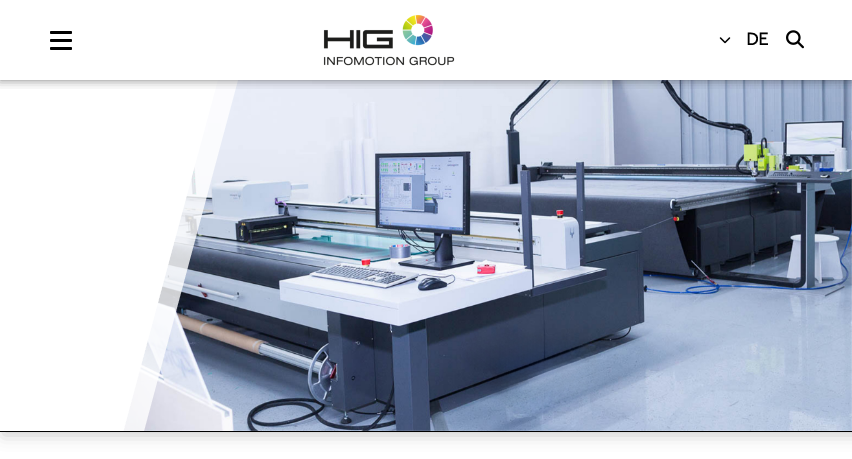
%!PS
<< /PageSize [852 459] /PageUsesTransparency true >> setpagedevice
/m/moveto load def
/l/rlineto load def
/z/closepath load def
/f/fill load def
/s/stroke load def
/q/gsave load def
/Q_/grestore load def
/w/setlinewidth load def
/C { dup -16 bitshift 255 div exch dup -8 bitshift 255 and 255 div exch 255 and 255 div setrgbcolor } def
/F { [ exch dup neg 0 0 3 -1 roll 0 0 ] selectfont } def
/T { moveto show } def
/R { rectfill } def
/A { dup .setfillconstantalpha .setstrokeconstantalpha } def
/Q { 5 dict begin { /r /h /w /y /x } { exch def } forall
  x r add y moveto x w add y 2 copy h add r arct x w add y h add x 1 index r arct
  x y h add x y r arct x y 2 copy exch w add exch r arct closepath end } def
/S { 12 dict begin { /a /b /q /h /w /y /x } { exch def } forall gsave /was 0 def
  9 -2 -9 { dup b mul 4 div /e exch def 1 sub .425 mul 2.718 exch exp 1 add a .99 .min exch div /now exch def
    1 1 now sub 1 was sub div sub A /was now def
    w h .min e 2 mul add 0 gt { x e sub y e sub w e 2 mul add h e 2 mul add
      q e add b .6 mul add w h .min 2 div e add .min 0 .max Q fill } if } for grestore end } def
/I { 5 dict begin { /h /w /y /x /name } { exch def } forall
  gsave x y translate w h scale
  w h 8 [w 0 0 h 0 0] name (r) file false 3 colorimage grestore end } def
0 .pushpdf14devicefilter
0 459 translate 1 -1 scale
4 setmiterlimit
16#FFFFFF C
0 0 852 459 R
q
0 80 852 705 rectclip
16#000000 C
3 83 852 352 0 7.5 .2 S
Q_
(4.rgb) 123 80 729 351 I
q
0 80 852 351 rectclip
-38 79 m 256 0 l -95 353 l -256 0 l z f
-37.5 79.5 m 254.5 0 l -94.5 352.5 l -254.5 0 l z s
0.8 A
20 w
-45 69 m 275.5 0 l -100 373.5 l -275.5 0 l z s
Q_
q
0 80 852 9 rectclip
16#000000 C
0 0 852 80 0 5 .5 S
Q_
16#000000 C
50 31 22 3 1.5 Q f
50 39 22 3 1.5 Q f
50 47 22 3 1.5 Q f
(1.rgb) 323 14 132 52 I
(2.rgb) 719 37 12 7 I
/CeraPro-Bold 18 F
(DE) 746 45 T
(3.rgb) 786 30 18 19 I
0 431 852 1 R
.poppdf14devicefilter showpage
